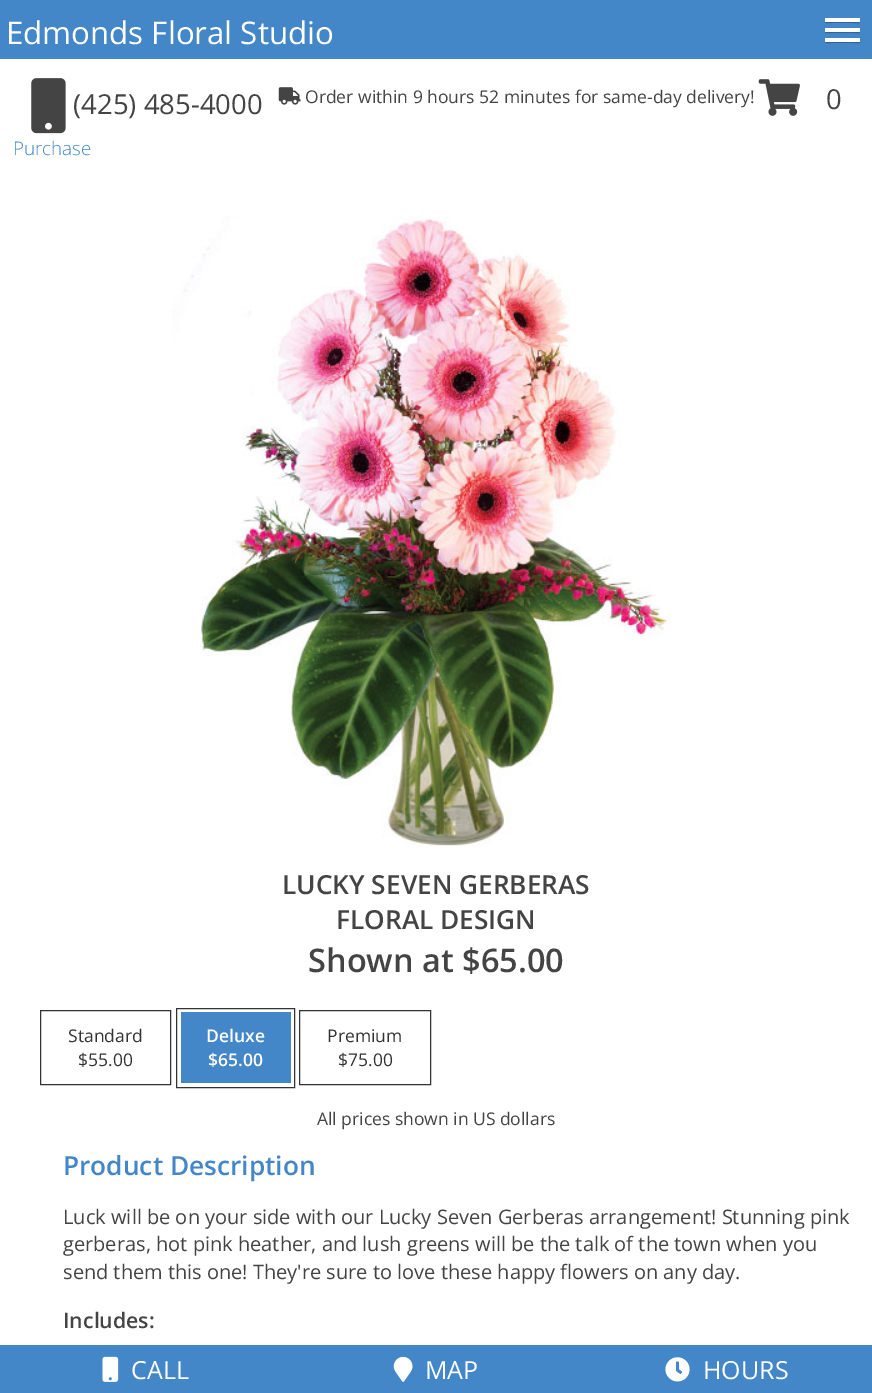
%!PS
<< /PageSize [872 1393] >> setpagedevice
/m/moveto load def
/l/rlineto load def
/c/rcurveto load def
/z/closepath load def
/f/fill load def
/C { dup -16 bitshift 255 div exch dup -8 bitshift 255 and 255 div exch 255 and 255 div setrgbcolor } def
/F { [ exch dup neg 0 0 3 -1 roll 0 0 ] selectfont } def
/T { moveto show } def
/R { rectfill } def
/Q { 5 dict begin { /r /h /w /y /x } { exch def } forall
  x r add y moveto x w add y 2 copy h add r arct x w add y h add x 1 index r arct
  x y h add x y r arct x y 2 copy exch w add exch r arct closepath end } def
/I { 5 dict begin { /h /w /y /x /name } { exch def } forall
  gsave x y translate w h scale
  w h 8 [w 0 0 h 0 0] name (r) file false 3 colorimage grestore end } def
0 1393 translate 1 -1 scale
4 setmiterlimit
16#FFFFFF C
0 0 872 1393 R
16#4387C8 C
0 0 872 59 R
/OpenSans-Regular 31.25 F
16#FFFFFF C
(Edmonds Floral Studio) 6 44 T
16#326596 C
825 20 m 0 4.5 1 3 6.5 3 c 22 0 l 5.5 0 6.5 1.5 6.5 -3 c 0 .5 -.5 1 -1 1 c -33 0 l -.5 0 -1 -.5 -1 -1 c z f
16#FFFFFF C
825 18 35 4 1 Q f
16#326596 C
825 30 m 0 4.5 1 3 6.5 3 c 22 0 l 5.5 0 6.5 1.5 6.5 -3 c 0 .5 -.5 1 -1 1 c -33 0 l -.5 0 -1 -.5 -1 -1 c z f
16#FFFFFF C
825 28 35 4 1 Q f
16#326596 C
825 40 m 0 4.5 1 3 6.5 3 c 22 0 l 5.5 0 6.5 1.5 6.5 -3 c 0 .5 -.5 1 -1 1 c -33 0 l -.5 0 -1 -.5 -1 -1 c z f
16#FFFFFF C
825 38 35 4 1 Q f
(1.rgb) 31 78 35 56 I
/OpenSans-Regular 27.5 F
16#444444 C
(\(425\) 485-4000) 73 114 T
(2.rgb) 278 87 23 18 I
/OpenSans-Regular 17.5 F
(Order within 9 hours 52 minutes for same-day delivery!) 305 103 T
(3.rgb) 758 79 42 37 I
/OpenSans-Regular 27.5 F
(0) 826 109 T
/OpenSans-Light 18.75 F
16#4387C8 C
(Purchase) 13 155 T
(4.rgb) 172 216 499 630 I
/OpenSans-SemiBold 26.25 F
16#444444 C
(LUCKY SEVEN GERBERAS) 282 894 T
(FLORAL DESIGN) 336 929 T
/OpenSans-SemiBold 32.5 F
(Shown at $65.00) 308 972 T
16#333333 C
40.5 1010.5 130 74 rectstroke
/OpenSans-Regular 17.5 F
(Standard) 68 1042 T
($55.00) 78 1066 T
176.5 1008.5 118 79 rectstroke
16#4387C8 C
181 1012 110 71 R
/OpenSans-SemiBold 17.5 F
16#FFFFFF C
(Deluxe) 206 1042 T
($65.00) 208 1066 T
16#333333 C
299.5 1010.5 131 74 rectstroke
/OpenSans-Regular 17.5 F
(Premium) 327 1042 T
($75.00) 338 1066 T
16#444444 C
(All prices shown in US dollars) 317 1125 T
/OpenSans-SemiBold 26.25 F
16#4387C8 C
(Product Description) 63 1175 T
/OpenSans-Regular 20 F
16#444444 C
(Luck will be on your side with our Lucky Seven Gerberas arrangement! Stunning pink) 63 1224 T
(gerberas, hot pink heather, and lush greens will be the talk of the town when you) 63 1251 T
(send them this one! They're sure to love these happy flowers on any day.) 63 1279 T
/OpenSans-SemiBold 21.25 F
(Includes:) 63 1328 T
16#4387C8 C
0 1345 872 48 R
(5.rgb) 102 1356 17 26 I
/OpenSans-Regular 25 F
16#FFFFFF C
(CALL) 131 1379 T
(6.rgb) 393 1356 20 26 I
(MAP) 425 1379 T
(7.rgb) 665 1357 25 25 I
(HOURS) 703 1379 T
showpage
